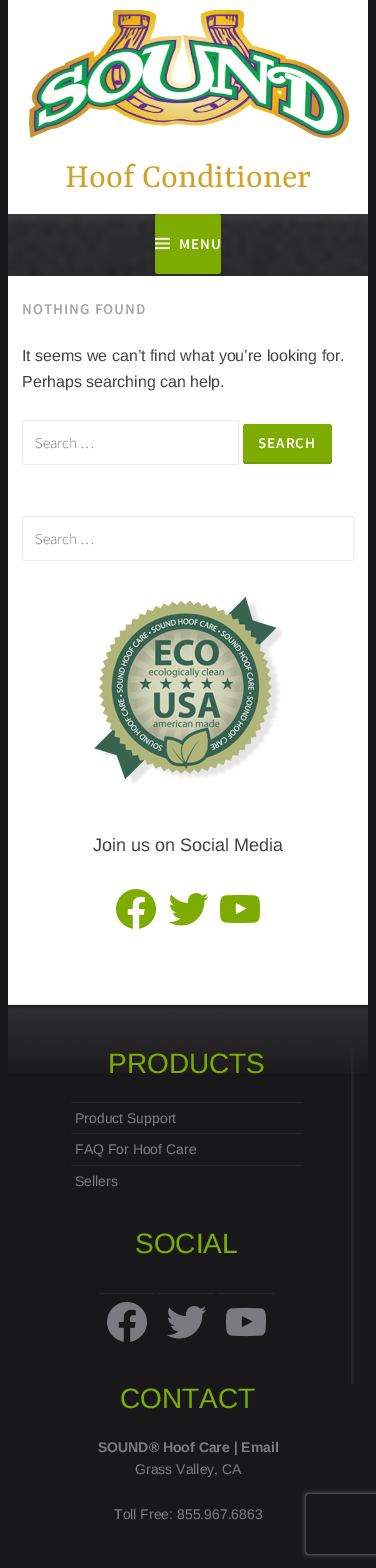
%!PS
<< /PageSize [376 1568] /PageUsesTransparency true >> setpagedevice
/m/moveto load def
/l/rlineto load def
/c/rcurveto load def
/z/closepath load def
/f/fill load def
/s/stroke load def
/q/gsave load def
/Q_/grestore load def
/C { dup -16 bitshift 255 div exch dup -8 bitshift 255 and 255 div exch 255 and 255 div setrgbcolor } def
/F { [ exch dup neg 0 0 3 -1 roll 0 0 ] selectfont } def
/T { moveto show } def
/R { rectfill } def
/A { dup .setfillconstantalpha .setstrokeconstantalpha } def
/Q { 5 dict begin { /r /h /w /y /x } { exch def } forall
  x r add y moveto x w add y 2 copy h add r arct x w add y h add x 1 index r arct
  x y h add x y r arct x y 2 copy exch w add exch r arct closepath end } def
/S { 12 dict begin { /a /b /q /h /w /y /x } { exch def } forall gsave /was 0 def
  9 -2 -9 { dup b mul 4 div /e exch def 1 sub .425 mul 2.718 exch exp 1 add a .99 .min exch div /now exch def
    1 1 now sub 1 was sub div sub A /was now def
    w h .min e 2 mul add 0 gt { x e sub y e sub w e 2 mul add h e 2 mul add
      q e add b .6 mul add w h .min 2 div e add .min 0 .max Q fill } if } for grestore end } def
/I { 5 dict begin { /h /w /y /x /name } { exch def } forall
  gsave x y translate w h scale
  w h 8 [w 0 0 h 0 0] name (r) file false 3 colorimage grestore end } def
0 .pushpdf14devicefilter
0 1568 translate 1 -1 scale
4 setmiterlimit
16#18181A C
0 0 376 1568 R
16#FFFFFF C
8 0 360 214 R
(1.rgb) 29 9 321 130 I
/Yrsa-Regular 36 F
16#D2A128 C
(Hoof Conditioner) 65 187 T
(2.rgb) 8 214 360 62 I
16#7DAB00 C
155 214 66 60 3 Q f
(3.rgb) 155 237 15 13 I
/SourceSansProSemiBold-SemiBold 15 F
16#FFFFFF C
179 249 m 1 0 (MENU) ashow
8 276 360 728 R
16#A8A6A1 C
22 314 m 1 0 (NOTHING FOUND) ashow
/LiberationSans-Regular 16 F
16#444340 C
(It seems we can’t find what you’re looking for.) 22 361 T
(Perhaps searching can help.) 22 387 T
16#EEEEEE C
22.5 420.5 216 44 1.5 Q s
/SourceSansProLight-Light 15 F
16#757575 C
(Search …) 35 448 T
16#7DAB00 C
243 424 89 40 3 Q f
0.1 A
16#000000 C
243 459 m 0 2 l 0 2 1 3 3 3 c 83 0 l 2 0 3 -1 3 -3 c 0 -2 l 0 2 -1 3 -3 3 c -83 0 l -2 0 -3 -1 -3 -3 c z f
/SourceSansProSemiBold-SemiBold 15 F
1 A
16#FFFFFF C
258 448 m 1 0 (SEARCH) ashow
16#EEEEEE C
22.5 516.5 331 44 1.5 Q s
/SourceSansProLight-Light 15 F
16#757575 C
(Search …) 35 544 T
(4.rgb) 94 597 189 187 I
/LiberationSans-Regular 18 F
16#444340 C
(Join us on Social Media) 93 851 T
(5.rgb) 116 889 40 40 I
(6.rgb) 168 893 41 33 I
(7.rgb) 220 894 40 30 I
(8.rgb) 8 1006 360 67 I
16#EEEEEE C
8 1004 360 1 R
16#252525 C
351 1049 3 335 R
/LiberationSans-Regular 28 F
16#7DAB00 C
(PRODUCTS) 108 1073 T
16#252525 C
71 1102 231 1 R
/LiberationSans-Regular 14 F
16#7A7A81 C
(Product Support) 75 1123 T
16#252525 C
71 1133 231 1 R
16#7A7A81 C
(FAQ For Hoof Care) 75 1154 T
16#252525 C
71 1165 231 1 R
16#7A7A81 C
(Sellers) 75 1186 T
/LiberationSans-Regular 28 F
16#7DAB00 C
(SOCIAL) 135 1253 T
16#252525 C
99 1293 56 1 R
(9.rgb) 107 1302 40 40 I
158 1293 56 1 R
(10.rgb) 166 1306 41 33 I
218 1293 56 1 R
(11.rgb) 226 1307 40 30 I
16#7DAB00 C
(CONTACT) 120 1408 T
/LiberationSans-Bold 14 F
16#7A7A81 C
(SOUND® Hoof Care | Email) 98 1452 T
/LiberationSans-Regular 14 F
(Grass Valley, CA) 135 1474 T
(Toll Free: 855.967.6863) 114 1519 T
q
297 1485 m 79 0 l 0 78 l -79 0 l z 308 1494 m 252 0 l 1 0 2 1 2 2 c 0 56 l 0 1 -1 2 -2 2 c -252 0 l -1 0 -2 -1 -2 -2 c 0 -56 l 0 -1 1 -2 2 -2 c z eoclip newpath
16#808080 C
306 1494 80 60 2 2.5 1 S
Q_
.poppdf14devicefilter showpage
